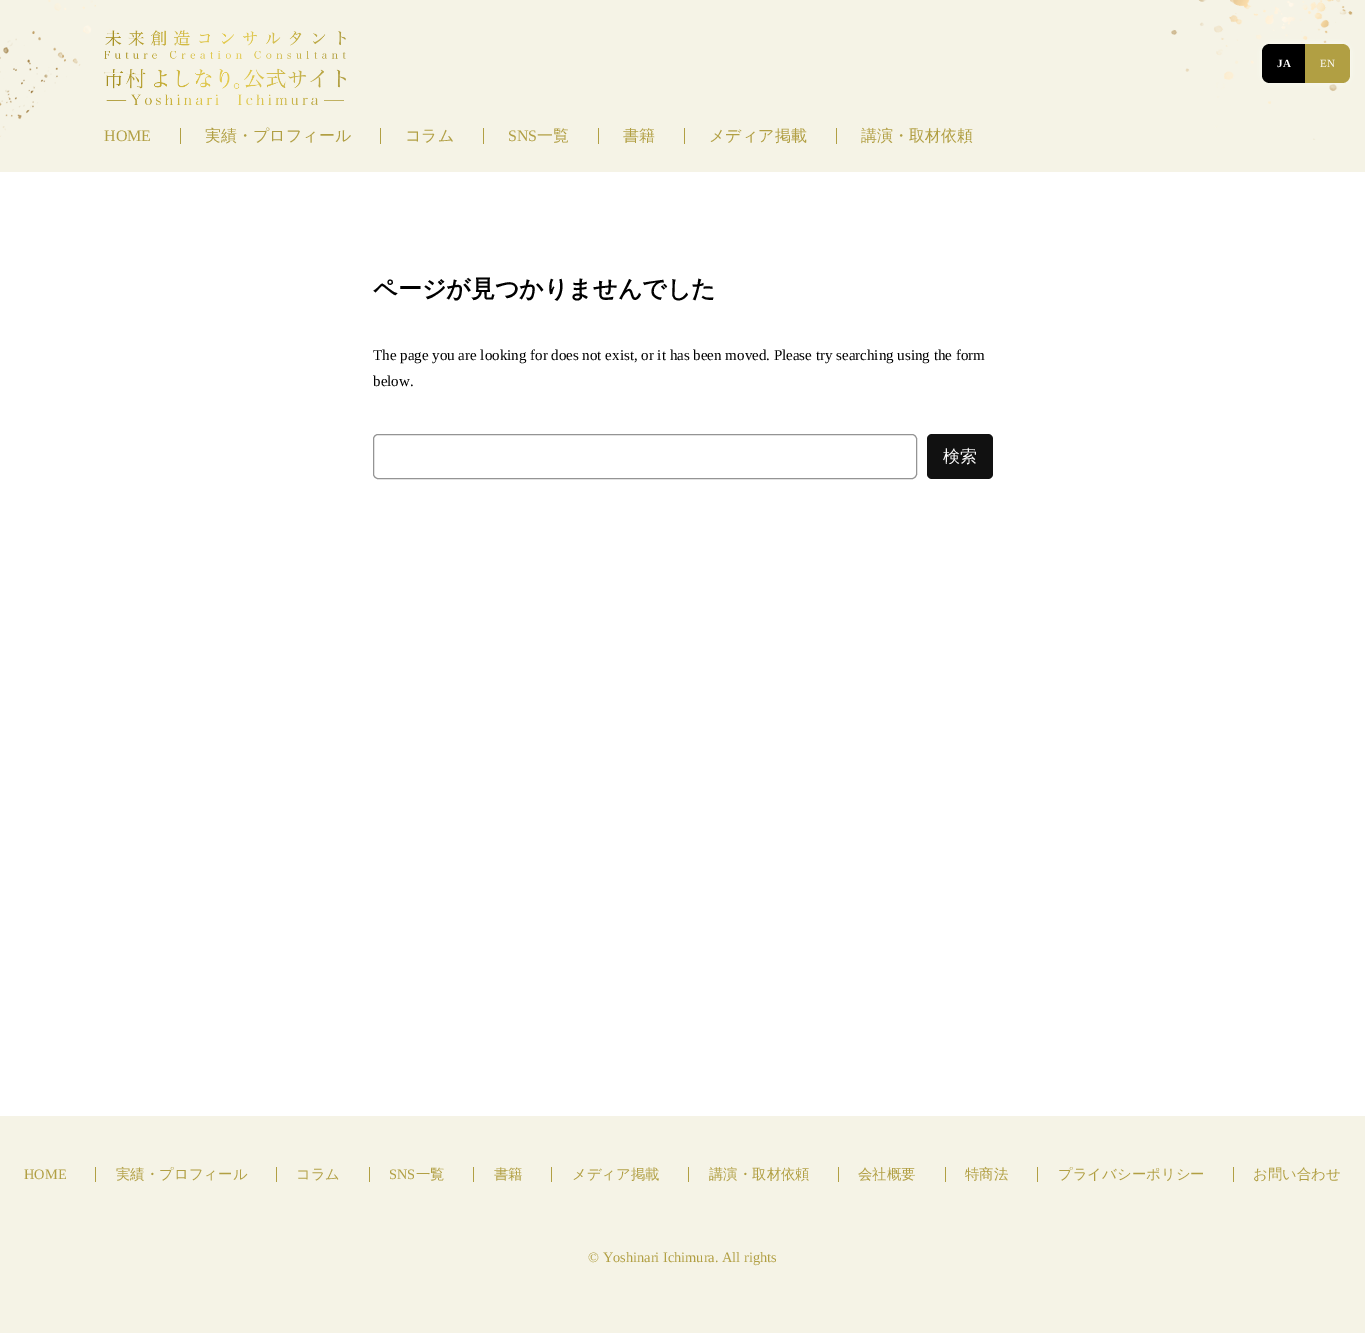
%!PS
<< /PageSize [1365 1333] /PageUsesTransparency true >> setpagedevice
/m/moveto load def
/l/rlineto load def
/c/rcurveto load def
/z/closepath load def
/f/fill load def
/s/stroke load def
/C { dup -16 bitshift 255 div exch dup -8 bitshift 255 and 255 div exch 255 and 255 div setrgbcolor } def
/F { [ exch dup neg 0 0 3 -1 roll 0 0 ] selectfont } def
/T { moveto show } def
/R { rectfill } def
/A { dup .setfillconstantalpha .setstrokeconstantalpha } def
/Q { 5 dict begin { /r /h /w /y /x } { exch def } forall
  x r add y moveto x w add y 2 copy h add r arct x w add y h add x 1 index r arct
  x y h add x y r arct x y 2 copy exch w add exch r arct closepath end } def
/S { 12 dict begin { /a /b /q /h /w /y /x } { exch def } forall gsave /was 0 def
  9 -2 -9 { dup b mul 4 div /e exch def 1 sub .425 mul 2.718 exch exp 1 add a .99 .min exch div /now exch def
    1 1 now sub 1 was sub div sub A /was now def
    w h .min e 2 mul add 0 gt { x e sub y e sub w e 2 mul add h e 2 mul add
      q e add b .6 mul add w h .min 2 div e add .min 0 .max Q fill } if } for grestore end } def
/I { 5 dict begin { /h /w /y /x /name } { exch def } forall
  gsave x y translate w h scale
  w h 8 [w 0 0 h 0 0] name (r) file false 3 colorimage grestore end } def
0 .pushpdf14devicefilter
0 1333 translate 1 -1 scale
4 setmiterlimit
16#FFFFFF C
0 0 1365 1333 R
16#F5F3E6 C
0 0 1365 172 R
(1.rgb) 0 0 1353 140 I
16#FFFFFF C
1262 44 88 39 8 4 .5 S
16#000000 C
1270 44 m 35 0 l 0 39 l -35 0 l -4.5 0 -8 -3.5 -8 -8 c 0 -23 l 0 -4.5 3.5 -8 8 -8 c z f
/LiberationSerif-Bold 11 F
16#FFFFFF C
(JA) 1277 67 T
16#B19F43 C
1305 44 m 37 0 l 4.5 0 8 3.5 8 8 c 0 23 l 0 4.5 -3.5 8 -8 8 c -37 0 l z f
/LiberationSerif-Regular 11 F
16#FFFFFF C
(EN) 1320 67 T
(2.rgb) 104 30 242 75 I
/LiberationSerif-Regular 16 F
16#B19F43 C
(HOME) 104 141 T
180 128 1 16 R
/WenQuanYiZenHei-Medium 16 F
(実績・プロフィール) 205 141 T
380 128 1 16 R
(コラム) 405 141 T
483 128 1 16 R
/LiberationSerif-Regular 16 F
(SNS) 508 141 T
/WenQuanYiZenHei-Medium 16 F
(一覧) 537 141 T
598 128 1 16 R
(書籍) 623 141 T
684 128 1 16 R
(メディア掲載) 709 141 T
836 128 1 16 R
(講演・取材依頼) 861 141 T
/WenQuanYiZenHei-Bold 24 F
16#000000 C
(ページが見つかりませんでした) 373 297 T
/LiberationSerif-Regular 15 F
(The page you are looking for does not exist, or it has been moved. Please try searching using the form) 373 360 T
(below.) 373 386 T
16#949494 C
373.5 434.5 543 44 4.5 Q s
16#111111 C
927 434 66 45 5 Q f
/WenQuanYiZenHei-Medium 17 F
16#F9F9F9 C
(検索) 943 462 T
16#F5F3E6 C
0 1116 1365 217 R
/LiberationSerif-Regular 14.4 F
16#B19F43 C
(HOME) 24 1179 T
95 1167 1 15 R
/WenQuanYiZenHei-Medium 14.4 F
(実績・プロフィール) 116 1179 T
276 1167 1 15 R
(コラム) 296 1179 T
369 1167 1 15 R
/LiberationSerif-Regular 14.4 F
(SNS) 389 1179 T
/WenQuanYiZenHei-Medium 14.4 F
(一覧) 416 1179 T
473 1167 1 15 R
(書籍) 494 1179 T
551 1167 1 15 R
(メディア掲載) 572 1179 T
688 1167 1 15 R
(講演・取材依頼) 709 1179 T
838 1167 1 15 R
(会社概要) 858 1179 T
945 1167 1 15 R
(特商法) 965 1179 T
1037 1167 1 15 R
(プライバシーポリシー) 1058 1179 T
1233 1167 1 15 R
(お問い合わせ) 1253 1179 T
/LiberationSerif-Regular 14.4 F
(© Yoshinari Ichimura. All rights) 588 1262 T
.poppdf14devicefilter showpage
